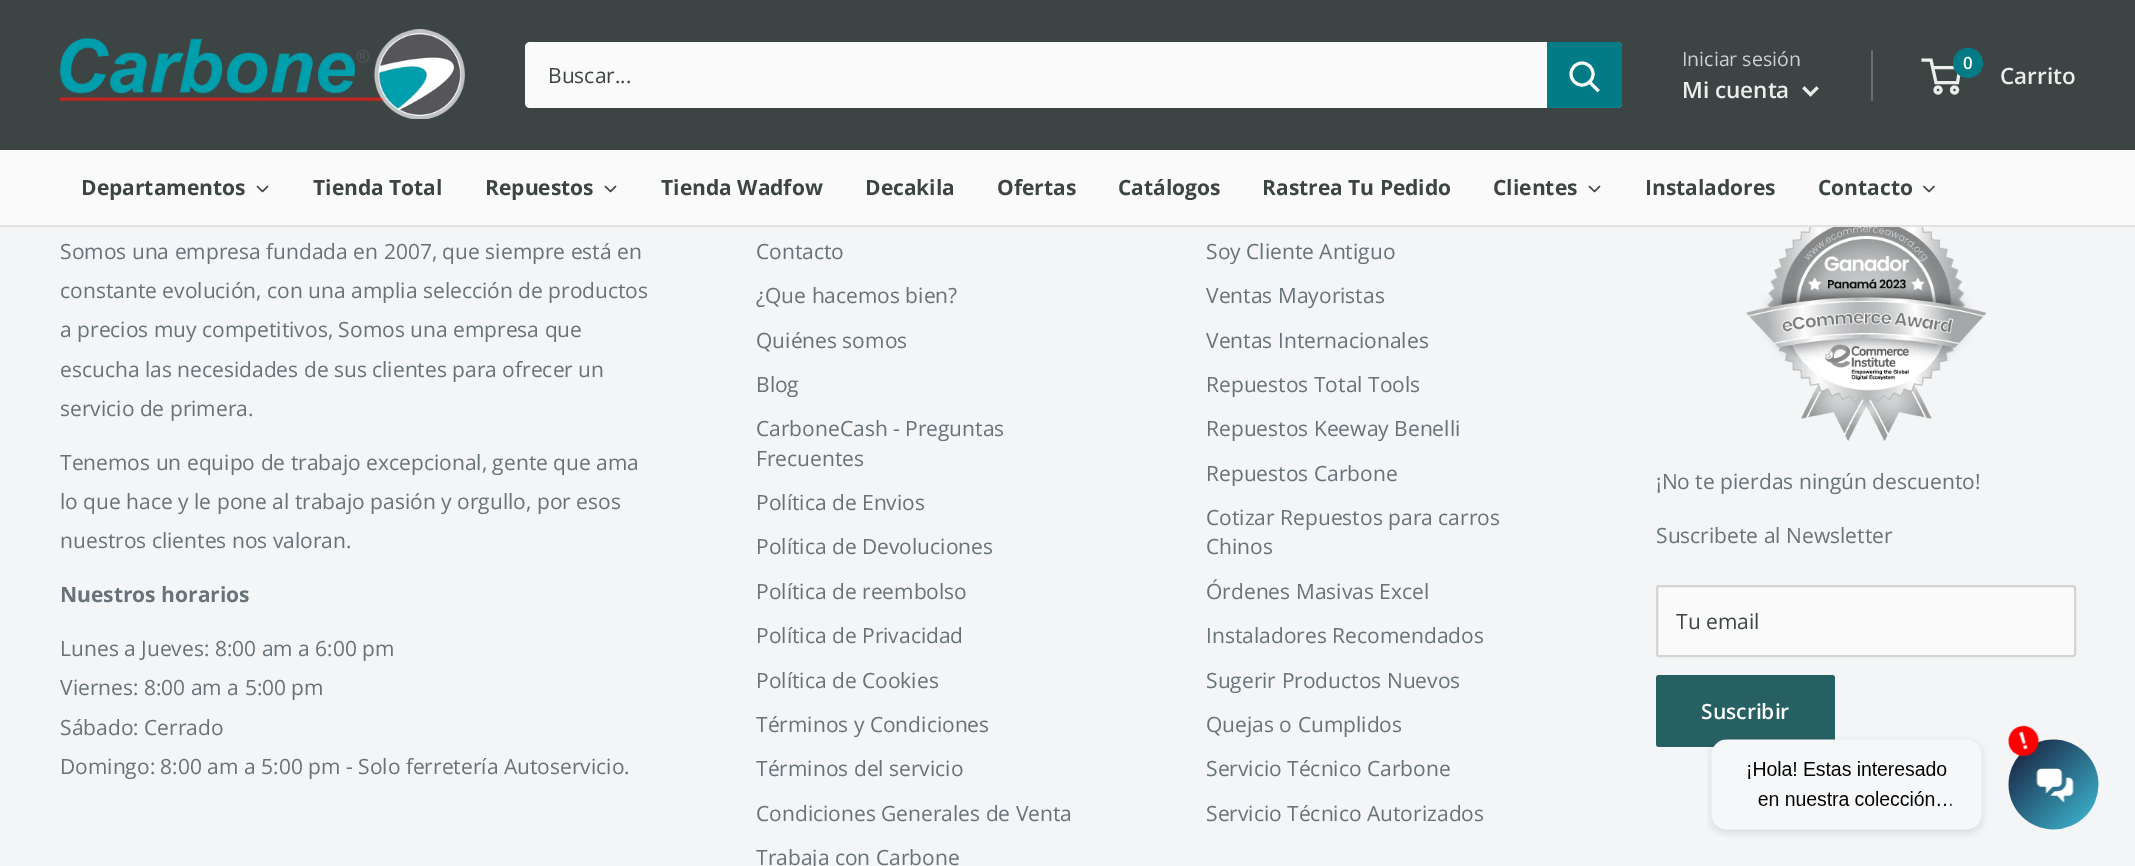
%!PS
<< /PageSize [2135 866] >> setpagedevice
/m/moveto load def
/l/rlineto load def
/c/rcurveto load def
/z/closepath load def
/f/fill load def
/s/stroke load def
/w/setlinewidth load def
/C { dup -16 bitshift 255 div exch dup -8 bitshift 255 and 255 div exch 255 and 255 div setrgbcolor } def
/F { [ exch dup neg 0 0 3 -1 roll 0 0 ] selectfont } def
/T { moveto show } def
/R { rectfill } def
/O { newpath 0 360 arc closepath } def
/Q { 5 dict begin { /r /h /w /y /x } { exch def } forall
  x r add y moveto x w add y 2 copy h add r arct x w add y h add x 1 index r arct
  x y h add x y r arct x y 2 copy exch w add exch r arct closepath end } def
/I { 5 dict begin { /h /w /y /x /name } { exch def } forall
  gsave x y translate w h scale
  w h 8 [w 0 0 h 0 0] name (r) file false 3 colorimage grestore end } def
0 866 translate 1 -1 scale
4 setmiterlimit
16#F3F5F6 C
0 0 2135 866 R
16#3D4444 C
0 0 2135 150 R
(1.rgb) 60 29 405 90 I
16#FAFAFA C
525 42 1097 66 5 Q f
/OpenSans-Regular 21 F
16#3D4444 C
(Buscar...) 548 83 T
16#017B85 C
1547 42 m 70 0 l 3 0 5 2 5 5 c 0 56 l 0 3 -2 5 -5 5 c -70 0 l z f
16#FAFAFA C
3 w
2 setlinecap
1597.5 90 m -7.5 -7.5 l s
0 setlinecap
1582 74 11 O s
/OpenSans-Regular 19.5 F
16#D1D1D4 C
(Iniciar sesión) 1682 66 T
16#696E6F C
1871 50 2 51 R
/OpenSans-SemiBold 22.5 F
16#ECEEEE C
(Mi cuenta) 1682 98 T
2 setlinecap
1816.5 88.5 m -6 6 l -6 -6 l s
0 setlinecap
1938 90 3 O s
1954.5 90 3 O s
1932.5 67.5 m 27.5 0 l -2.5 15 l -21.5 0 l -5 -22.5 l -9.5 0 l s
16#017B85 C
1968 63 15 O f
/OpenSans-SemiBold 17 F
16#FFFFFF C
(0) 1963 69 T
/OpenSans-SemiBold 22.5 F
16#ECEEEE C
(Carrito) 2000 84 T
16#FAFAFA C
0 150 2135 75 R
16#E1E1E1 C
0 225 2135 2 R
/OpenSans-Bold 21 F
16#3D4444 C
(Departamentos) 81 195 T
(2.rgb) 256 185 13 8 I
(Tienda Total) 313 195 T
(Repuestos) 485 195 T
(2.rgb) 604 185 13 8 I
(Tienda Wadfow) 661 195 T
(Decakila) 865 195 T
(Ofertas) 997 195 T
(Catálogos) 1118 195 T
(Rastrea Tu Pedido) 1262 195 T
(Clientes) 1493 195 T
(2.rgb) 1588 185 13 8 I
(Instaladores) 1645 195 T
(Contacto) 1818 195 T
(3.rgb) 1923 185 12 8 I
/OpenSans-Regular 21 F
16#677279 C
(Somos una empresa fundada en 2007, que siempre está en) 60 259 T
(constante evolución, con una amplia selección de productos) 60 298 T
(a precios muy competitivos, Somos una empresa que) 60 337 T
(escucha las necesidades de sus clientes para ofrecer un) 60 377 T
(servicio de primera.) 60 416 T
(Tenemos un equipo de trabajo excepcional, gente que ama) 60 470 T
(lo que hace y le pone al trabajo pasión y orgullo, por esos) 60 509 T
(nuestros clientes nos valoran.) 60 548 T
/OpenSans-Bold 21 F
(Nuestros horarios) 60 602 T
/OpenSans-Regular 21 F
(Lunes a Jueves: 8:00 am a 6:00 pm) 60 656 T
(Viernes: 8:00 am a 5:00 pm) 60 695 T
(Sábado: Cerrado) 60 735 T
(Domingo: 8:00 am a 5:00 pm - Solo ferretería Autoservicio.) 60 774 T
(Contacto) 756 259 T
(¿Que hacemos bien?) 756 303 T
(Quiénes somos) 756 348 T
(Blog) 756 392 T
(CarboneCash - Preguntas) 756 436 T
(Frecuentes) 756 466 T
(Política de Envios) 756 510 T
(Política de Devoluciones) 756 554 T
(Política de reembolso) 756 599 T
(Política de Privacidad) 756 643 T
(Política de Cookies) 756 688 T
(Términos y Condiciones) 756 732 T
(Términos del servicio) 756 776 T
(Condiciones Generales de Venta) 756 821 T
(Trabaja con Carbone) 756 865 T
(Soy Cliente Antiguo) 1206 259 T
(Ventas Mayoristas) 1206 303 T
(Ventas Internacionales) 1206 348 T
(Repuestos Total Tools) 1206 392 T
(Repuestos Keeway Benelli) 1206 436 T
(Repuestos Carbone) 1206 481 T
(Cotizar Repuestos para carros) 1206 525 T
(Chinos) 1206 554 T
(Órdenes Masivas Excel) 1206 599 T
(Instaladores Recomendados) 1206 643 T
(Sugerir Productos Nuevos) 1206 688 T
(Quejas o Cumplidos) 1206 732 T
(Servicio Técnico Carbone) 1206 776 T
(Servicio Técnico Autorizados) 1206 821 T
(4.rgb) 1746 227 240 214 I
(¡No te pierdas ningún descuento!) 1656 489 T
(Suscribete al Newsletter) 1656 543 T
16#FAFAFA C
1656 585 420 72 3 Q f
16#F4F4F4 C
1659 588 m 414 0 l 1 0 1 1 1 2 c 0 66 l 1 -1 l 0 -67 l 0 0 -1 -1 -1 -1 c -415 0 l -1 3 l 0 -1 0 -2 1 -2 c z f
16#D4D4D4 C
2 w
1657 586 418 70 2 Q s
16#3D4444 C
(Tu email) 1676 629 T
16#276063 C
1656 675 179 72 3 Q f
/OpenSans-SemiBold 21 F
16#FFFFFF C
(Suscribir) 1701 719 T
(5.rgb) 1707 725 392 112 I
showpage
